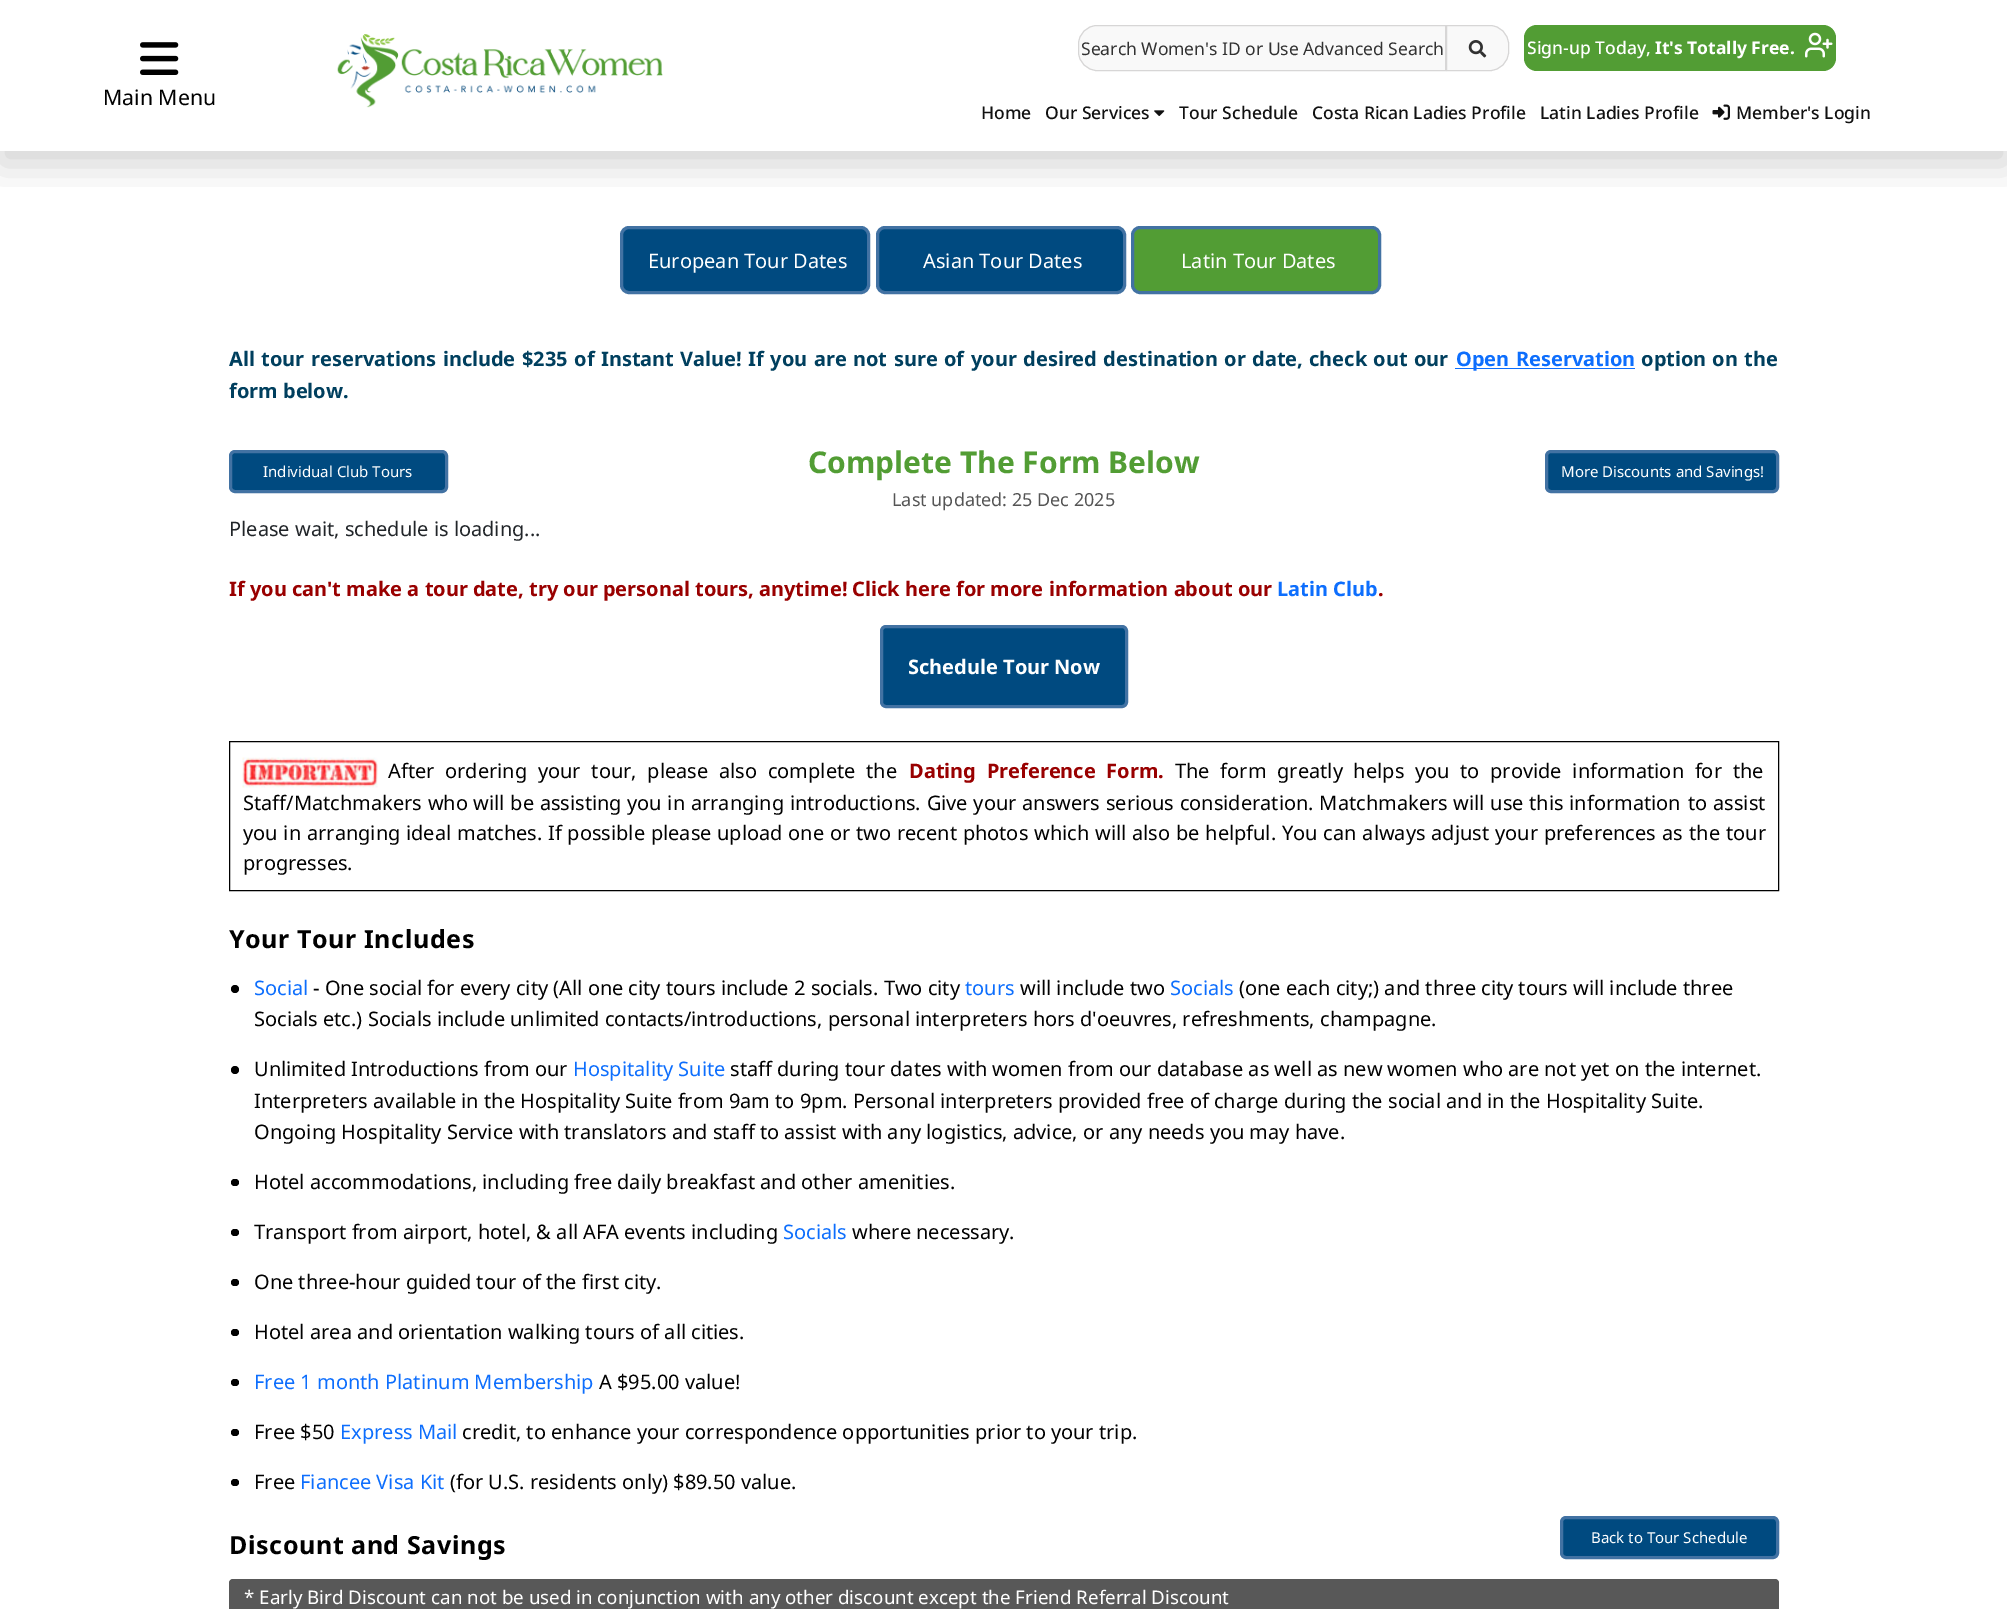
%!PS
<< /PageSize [2007 1609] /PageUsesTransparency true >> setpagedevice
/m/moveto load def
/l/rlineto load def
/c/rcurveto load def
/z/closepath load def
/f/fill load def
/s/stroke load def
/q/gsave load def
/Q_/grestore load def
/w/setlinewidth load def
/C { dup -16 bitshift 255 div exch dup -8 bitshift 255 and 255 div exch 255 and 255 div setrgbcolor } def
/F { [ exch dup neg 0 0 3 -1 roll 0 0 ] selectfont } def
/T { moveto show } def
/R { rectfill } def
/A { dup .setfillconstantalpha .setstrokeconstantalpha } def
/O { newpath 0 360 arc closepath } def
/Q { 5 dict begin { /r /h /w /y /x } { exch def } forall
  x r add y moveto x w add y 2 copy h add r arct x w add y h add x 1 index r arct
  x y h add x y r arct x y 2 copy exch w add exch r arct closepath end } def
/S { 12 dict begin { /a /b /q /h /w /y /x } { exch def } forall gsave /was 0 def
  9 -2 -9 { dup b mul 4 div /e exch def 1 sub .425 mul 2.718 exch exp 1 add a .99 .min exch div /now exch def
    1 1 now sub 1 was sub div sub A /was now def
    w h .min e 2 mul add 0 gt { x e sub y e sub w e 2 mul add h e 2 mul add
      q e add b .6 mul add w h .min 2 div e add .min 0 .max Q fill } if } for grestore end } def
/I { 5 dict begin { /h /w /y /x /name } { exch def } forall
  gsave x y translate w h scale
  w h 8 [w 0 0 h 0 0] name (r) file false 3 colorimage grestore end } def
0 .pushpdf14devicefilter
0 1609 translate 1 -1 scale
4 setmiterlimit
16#FFFFFF C
0 0 2007 1609 R
q
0 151 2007 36 rectclip
16#000000 C
0 13 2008 151 0 19 .18 S
Q_
(1.rgb) 140 42 39 33 I
/NotoSans-Regular 21.25 F
16#000000 C
(Main Menu) 103 105 T
(2.rgb) 337 34 326 74 I
16#F9F9F9 C
1097 25.5 m 348.5 0 l 0 45 l -348.5 0 l -10 0 -18.5 -8.5 -18.5 -18.5 c 0 -8 l 0 -10 8.5 -18.5 18.5 -18.5 c z q f Q_
16#D7D6D6 C
s
/NotoSans-Regular 17.5 F
16#323232 C
(Search Women's ID or Use Advanced Search) 1081 55 T
16#F9F9F9 C
1446.5 25.5 m 43.5 0 l 10 0 18.5 8.5 18.5 18.5 c 0 8 l 0 10 -8.5 18.5 -18.5 18.5 c -43.5 0 l z q f Q_
16#D7D6D6 C
s
(3.rgb) 1468 40 19 18 I
16#529D34 C
1524 25 312 46 13 Q f
/NotoSans-Medium 17.5 F
16#FFFFFF C
(Sign-up Today,) 1527 54 T
/NotoSans-Bold 17.5 F
(It's Totally Free.) 1655 54 T
(4.rgb) 1805 32 28 26 I
/NotoSans-Medium 17.5 F
16#111111 C
(Home) 981 119 T
(Our Services) 1045 119 T
(5.rgb) 1154 110 11 6 I
(Tour Schedule) 1179 119 T
(Costa Rican Ladies Profile) 1312 119 T
(Latin Ladies Profile) 1540 119 T
(6.rgb) 1712 104 18 16 I
(Member's Login) 1736 119 T
16#004A80 C
621.5 227.5 247 65 7.5 Q q f Q_
16#4272A3 C
3 w
s
/NotoSans-Regular 20 F
16#FFFFFF C
(European Tour Dates) 648 268 T
16#004A80 C
877.5 227.5 247 65 7.5 Q q f Q_
16#4272A3 C
s
16#FFFFFF C
(Asian Tour Dates) 923 268 T
16#529D34 C
1132.5 227.5 247 65 7.5 Q q f Q_
16#4272A3 C
s
16#FFFFFF C
(Latin Tour Dates) 1181 268 T
/NotoSans-Bold 20 F
16#003F5E C
229 366 m 1.25 0 32 (All tour reservations include $235 of Instant Value! If you are not sure of your desired destination or) widthshow
1252 366 m 1 0 32 (date, check out our) widthshow
16#0D6EFD C
1455 368 180 1 R
1456 366 m 1.25 0 32 (Open Reservation) widthshow
16#003F5E C
1641 366 m 1 0 32 (option on the) widthshow
(form below.) 229 398 T
16#004A80 C
230.5 451.5 216 40 4.5 Q q f Q_
16#4272A3 C
s
/NotoSans-Regular 15 F
16#FFFFFF C
(Individual Club Tours) 263 477 T
/NotoSans-Bold 30 F
16#529D34 C
(Complete The Form Below) 808 473 T
16#004A80 C
1546.5 451.5 231 40 4.5 Q q f Q_
16#4272A3 C
s
/NotoSans-Regular 15 F
16#FFFFFF C
(More Discounts and Savings!) 1561 477 T
/NotoSans-Regular 18 F
16#555555 C
(Last updated: 25 Dec 2025) 892 506 T
/NotoSans-Regular 20 F
16#212529 C
(Please wait, schedule is loading...) 229 536 T
/NotoSans-Bold 20 F
16#990000 C
(If you can't make a tour date, try our personal tours, anytime! Click here for more information about our) 229 596 T
16#0D6EFD C
(Latin Club) 1277 596 T
16#990000 C
(.) 1378 596 T
16#004A80 C
881.5 626.5 245 80 4.5 Q q f Q_
16#4272A3 C
s
16#FFFFFF C
(Schedule Tour Now) 908 674 T
16#000000 C
1 w
229.5 741.5 1549 149 rectstroke
(7.rgb) 242 757 136 31 I
/NotoSans-Regular 20 F
388 778 m 5.5 0 32 (After ordering your tour, please also complete the) widthshow
/NotoSans-Bold 20 F
16#990000 C
909 778 m 5.5 0 32 (Dating Preference Form.) widthshow
/NotoSans-Regular 20 F
16#000000 C
1175 778 m 5.5 0 32 (The form greatly helps you to provide information for the) widthshow
243 810 m .5 0 32 (Staff/Matchmakers who will be assisting) widthshow
627 810 m .5 0 32 (you in arranging introductions. Give your answers serious consideration. Matchmakers will use this information) widthshow
1688 810 m .5 0 32 (to assist) widthshow
243 840 m .6 0 32 (you in arranging ideal matches. If possible please) widthshow
717 840 m .6 0 32 (upload one or two recent photos which will also be helpful. You can always adjust your preferences) widthshow
1662 840 m 1 0 32 (as the tour) widthshow
(progresses.) 243 870 T
/NotoSans-Bold 25 F
229 948 m .6 0 (Your Tour Includes) ashow
235 989 4 O f
/NotoSans-Regular 20 F
16#0D6EFD C
(Social) 254 995 T
16#000000 C
(- One social for every city \(All one city tours include 2 socials. Two city) 313 995 T
16#0D6EFD C
(tours) 965 995 T
16#000000 C
(will include two) 1020 995 T
16#0D6EFD C
(Socials) 1170 995 T
16#000000 C
(\(one each city;\) and three city tours will include three) 1239 995 T
(Socials etc.\) Socials include unlimited contacts/introductions, personal interpreters hors d'oeuvres, refreshments, champagne.) 254 1026 T
235 1070 4 O f
(Unlimited Introductions from our) 254 1076 T
16#0D6EFD C
(Hospitality Suite) 573 1076 T
16#000000 C
(staff during tour dates with women from our database as well as new women who are not yet on the internet.) 730 1076 T
(Interpreters available in the Hospitality Suite from 9am to 9pm. Personal interpreters provided free of charge during the social and in the Hospitality Suite.) 254 1108 T
(Ongoing Hospitality Service with translators and staff to assist with any logistics, advice, or any needs you may have.) 254 1139 T
231 1179 8 7 3.5 Q f
(Hotel accommodations, including free daily breakfast and other amenities.) 254 1189 T
231 1229 8 7 3.5 Q f
(Transport from airport, hotel, & all AFA events including) 254 1239 T
16#0D6EFD C
(Socials) 783 1239 T
16#000000 C
(where necessary.) 852 1239 T
231 1279 8 7 3.5 Q f
(One three-hour guided tour of the first city.) 254 1289 T
231 1329 8 7 3.5 Q f
(Hotel area and orientation walking tours of all cities.) 254 1339 T
231 1379 8 7 3.5 Q f
16#0D6EFD C
(Free 1 month Platinum Membership) 254 1389 T
16#000000 C
(A $95.00 value!) 599 1389 T
231 1429 8 7 3.5 Q f
(Free $50) 254 1439 T
16#0D6EFD C
(Express Mail) 340 1439 T
16#000000 C
(credit, to enhance your correspondence opportunities prior to your trip.) 462 1439 T
231 1479 8 7 3.5 Q f
(Free) 254 1489 T
16#0D6EFD C
(Fiancee Visa Kit) 300 1489 T
16#000000 C
(\(for U.S. residents only\) $89.50 value.) 450 1489 T
/NotoSans-Bold 25 F
229 1554 m .6 0 (Discount and Savings) ashow
16#004A80 C
1561.5 1517.5 216 40 4.5 Q q f Q_
16#4272A3 C
3 w
s
/NotoSans-Regular 15 F
16#FFFFFF C
(Back to Tour Schedule) 1591 1543 T
16#585858 C
229 1579 1550 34 4 Q f
/NotoSans-Regular 18.75 F
16#FFFFFF C
(* Early Bird Discount can not be used in conjunction with any other discount except the Friend Referral Discount) 244 1604 T
.poppdf14devicefilter showpage
